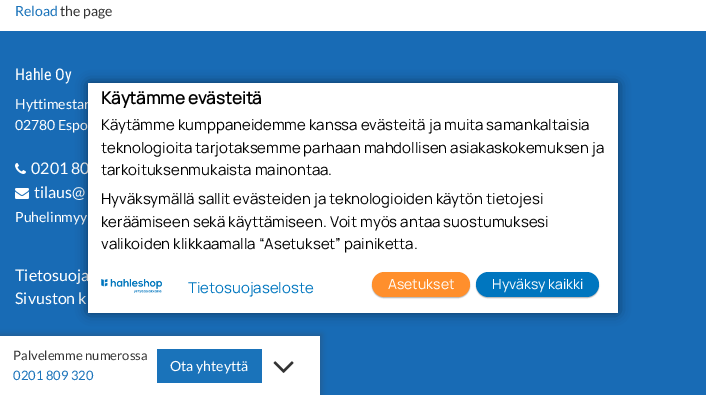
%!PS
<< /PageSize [706 395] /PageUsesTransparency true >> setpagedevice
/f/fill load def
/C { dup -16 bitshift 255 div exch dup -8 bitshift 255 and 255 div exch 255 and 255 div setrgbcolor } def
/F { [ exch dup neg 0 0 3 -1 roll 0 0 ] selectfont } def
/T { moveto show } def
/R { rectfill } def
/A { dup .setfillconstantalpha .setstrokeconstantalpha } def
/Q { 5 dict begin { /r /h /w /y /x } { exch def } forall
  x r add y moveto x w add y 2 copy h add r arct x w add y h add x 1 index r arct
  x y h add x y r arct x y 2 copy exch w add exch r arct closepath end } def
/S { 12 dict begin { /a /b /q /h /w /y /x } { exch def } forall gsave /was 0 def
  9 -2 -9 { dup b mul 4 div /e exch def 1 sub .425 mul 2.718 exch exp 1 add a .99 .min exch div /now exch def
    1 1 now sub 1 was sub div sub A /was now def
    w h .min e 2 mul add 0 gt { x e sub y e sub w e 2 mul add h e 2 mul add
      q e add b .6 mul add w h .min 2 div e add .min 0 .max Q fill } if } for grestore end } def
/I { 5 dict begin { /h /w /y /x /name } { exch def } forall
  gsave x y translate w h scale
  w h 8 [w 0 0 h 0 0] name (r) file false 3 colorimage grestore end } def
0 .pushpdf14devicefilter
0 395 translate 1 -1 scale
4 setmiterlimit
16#FFFFFF C
0 0 706 395 R
/Lato-Regular 14 F
16#1A73BA C
(Reload) 15 16 T
16#333333 C
(the page) 60 16 T
16#186BB5 C
0 31 706 364 R
/RobotoCondensed-Regular 16 F
16#FFFFFF C
(Hahle Oy) 15 80 T
/Lato-Regular 14 F
(Hyttimestar) 15 109 T
(02780 Espo) 15 130 T
(1.rgb) 15 163 11 11 I
/Lato-Regular 16 F
(0201 80) 31 174 T
(2.rgb) 15 188 14 11 I
(tilaus@) 34 198 T
/Lato-Regular 14 F
(Puhelinmyy) 15 222 T
/Lato-Regular 16 F
(Tietosuoja) 15 281 T
(Sivuston k) 15 304 T
16#3D3D3D C
-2 334 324 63 0 3 .3 S
16#FFFFFF C
0 336 320 59 R
/Lato-Regular 13 F
16#333333 C
(Palvelemme numerossa) 13 360 T
16#1A73BA C
(0201 809 320) 13 380 T
157 349 105 34 R
/Lato-Regular 14 F
16#FFFFFF C
(Ota yhteyttä) 170 371 T
(3.rgb) 273 361 21 12 I
16#000000 C
88 83 530 230 1 6 .5 S
16#FFFFFF C
88 83 530 230 1 Q f
/Manrope-Bold 17 F
16#000000 C
(Käytämme evästeitä) 101 104 T
/Manrope-ExtraLight 15 F
(Käytämme kumppaneidemme kanssa evästeitä ja muita samankaltaisia) 101 130 T
(teknologioita tarjotaksemme parhaan mahdollisen asiakaskokemuksen ja) 101 153 T
(tarkoituksenmukaista mainontaa.) 101 175 T
(Hyväksymällä sallit evästeiden ja teknologioiden käytön tietojesi) 101 204 T
(keräämiseen sekä käyttämiseen. Voit myös antaa suostumuksesi) 101 227 T
(valikoiden klikkaamalla “Asetukset” painiketta.) 101 249 T
16#FFFFFF C
88 312 530 1 R
(4.rgb) 101 279 61 14 I
16#0076BF C
(Tietosuojaseloste) 188 293 T
16#000000 C
372 273 98 25 12.5 .5 .3 S
16#FF8F2C C
372 272 98 25 12.5 Q f
/Manrope-ExtraLight 14 F
16#FFFFFF C
(Asetukset) 388 289 T
16#000000 C
476 273 123 25 12.5 .5 .3 S
16#0076BF C
476 272 123 25 12.5 Q f
16#FFFFFF C
(Hyväksy kaikki) 492 289 T
.poppdf14devicefilter showpage
